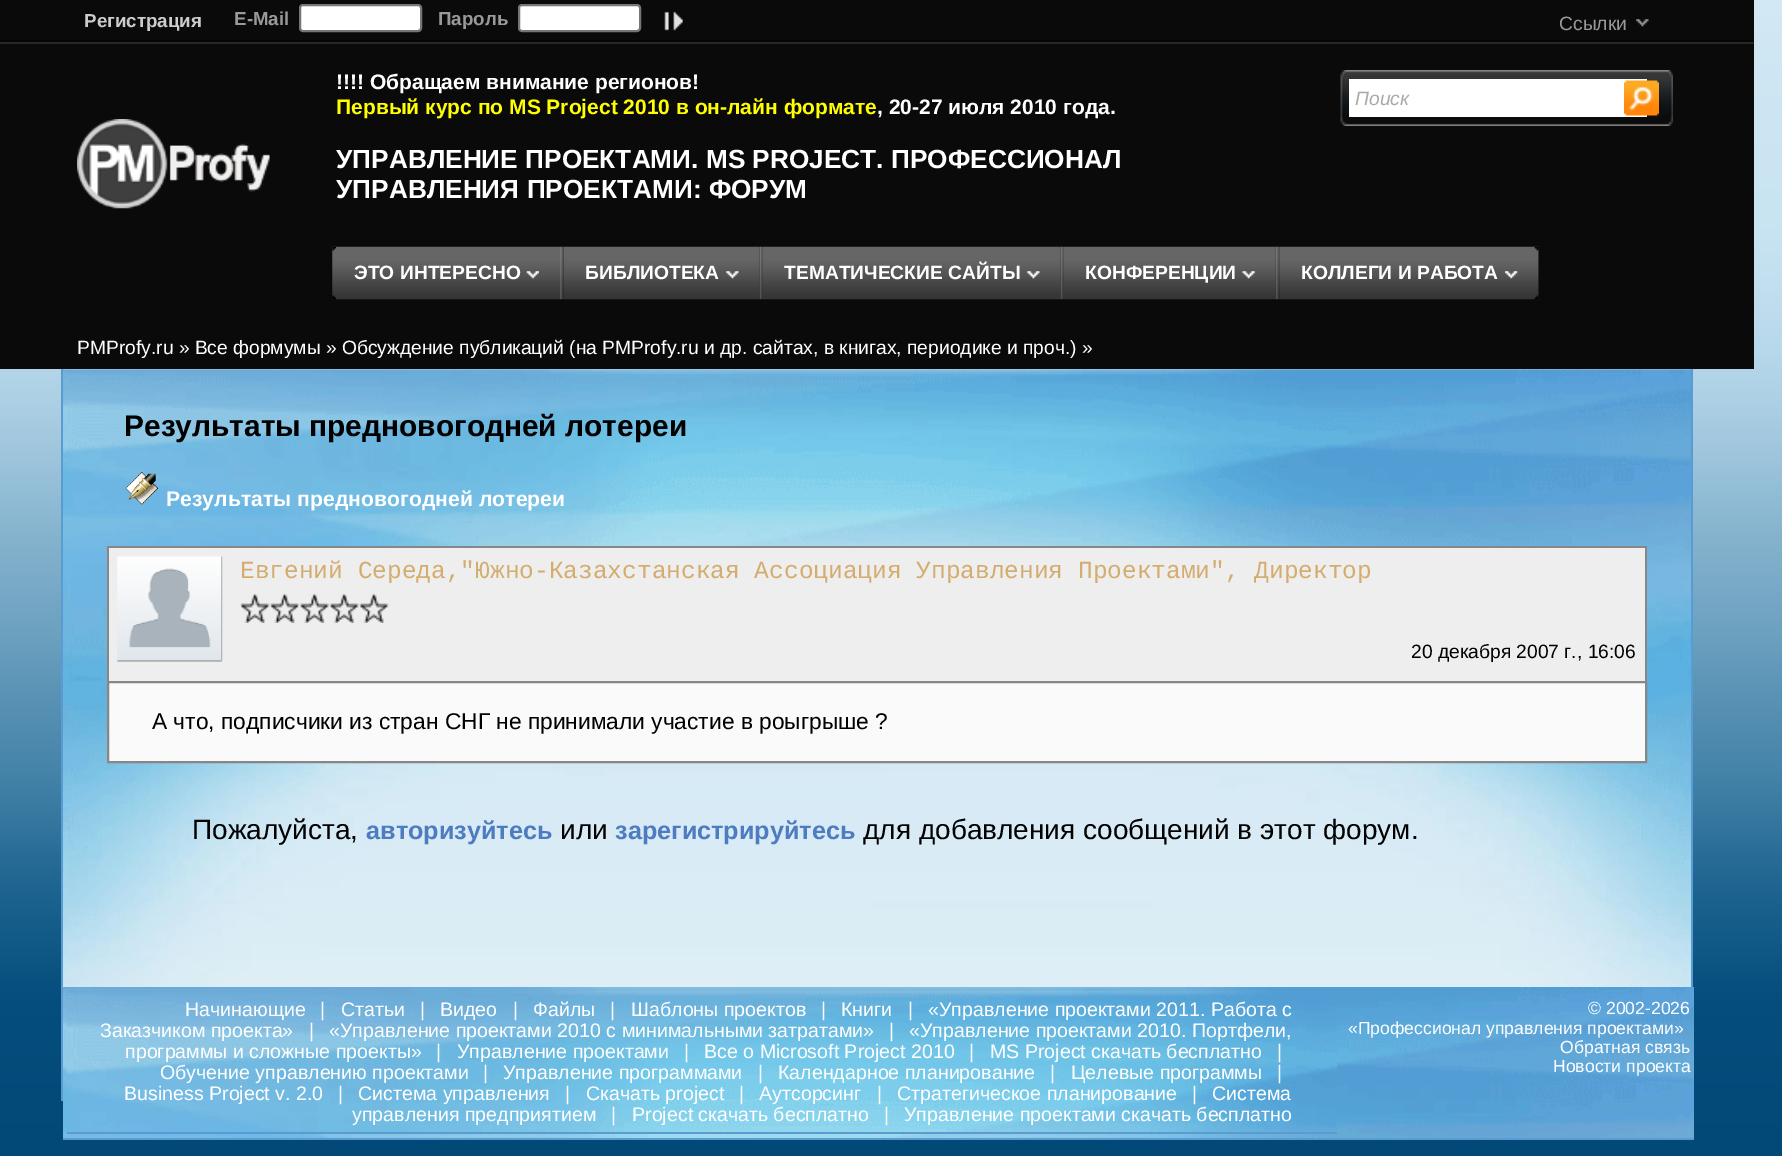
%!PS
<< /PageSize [1782 1156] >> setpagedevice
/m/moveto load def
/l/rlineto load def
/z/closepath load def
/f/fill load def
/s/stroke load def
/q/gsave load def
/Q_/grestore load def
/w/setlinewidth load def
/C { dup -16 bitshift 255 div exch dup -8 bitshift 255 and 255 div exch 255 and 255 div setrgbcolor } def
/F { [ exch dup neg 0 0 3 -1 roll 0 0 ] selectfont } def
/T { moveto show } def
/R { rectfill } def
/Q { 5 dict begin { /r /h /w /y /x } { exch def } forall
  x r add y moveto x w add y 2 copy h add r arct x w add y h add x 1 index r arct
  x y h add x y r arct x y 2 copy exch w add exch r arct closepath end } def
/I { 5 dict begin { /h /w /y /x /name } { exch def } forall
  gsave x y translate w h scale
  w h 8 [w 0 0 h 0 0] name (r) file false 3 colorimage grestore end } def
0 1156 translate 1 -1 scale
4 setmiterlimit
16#FFFFFF C
0 0 1782 1156 R
(1.rgb) 0 0 1782 1156 I
16#0A0A0A C
0 0 1754 369 R
(2.rgb) 0 40 1754 4 I
/LiberationSans-Bold 18.75 F
16#CCCCCC C
(Регистрация) 84 27 T
16#999999 C
(E-Mail) 234 25 T
16#FFFFFF C
300 5 121 26 3 Q q f Q_
16#767676 C
2 w
s
16#999999 C
(Пароль) 438 25 T
16#FFFFFF C
519 5 121 26 3 Q q f Q_
16#767676 C
s
(3.rgb) 664 11 19 20 I
/LiberationSans-Regular 19.25 F
16#999999 C
(Ссылки) 1559 30 T
(4.rgb) 1636 19 13 8 I
/LiberationSans-Bold 21 F
16#FFFFFF C
(!!!! Обращаем внимание регионов!) 336 89 T
16#FFFF00 C
(Первый курс по MS Project 2010 в он-лайн формате) 336 114 T
16#FFFFFF C
(, 20-27 июля 2010 года.) 877 114 T
/LiberationSans-Bold 26.25 F
(УПРАВЛЕНИЕ ПРОЕКТАМИ. MS PROJECT. ПРОФЕССИОНАЛ) 336 168 T
(УПРАВЛЕНИЯ ПРОЕКТАМИ: ФОРУМ) 336 198 T
(5.rgb) 1340 70 333 56 I
1349 79 298 38 R
/LiberationSans-Italic 19.25 F
16#AAAAAA C
(Поиск) 1355 105 T
(6.rgb) 1624 80 35 36 I
(7.rgb) 77 119 193 90 I
(8.rgb) 332 246 228 54 I
(9.rgb) 332 246 4 54 I
/LiberationSans-Bold 19.25 F
16#FFFFFF C
(ЭТО ИНТЕРЕСНО) 354 279 T
(10.rgb) 526 271 13 8 I
(11.rgb) 560 246 4 54 I
(12.rgb) 563 246 197 54 I
(БИБЛИОТЕКА) 585 279 T
(13.rgb) 726 271 13 8 I
(14.rgb) 759 246 4 54 I
(15.rgb) 763 246 298 54 I
(ТЕМАТИЧЕСКИЕ САЙТЫ) 784 279 T
(16.rgb) 1027 271 13 8 I
(14.rgb) 1060 246 4 54 I
(17.rgb) 1064 246 212 54 I
(КОНФЕРЕНЦИИ) 1085 279 T
(18.rgb) 1242 271 13 8 I
(19.rgb) 1275 246 5 54 I
(20.rgb) 1279 246 260 54 I
(21.rgb) 1534 246 5 54 I
(КОЛЛЕГИ И РАБОТА) 1301 279 T
(22.rgb) 1505 271 13 8 I
/LiberationSans-Regular 19.25 F
(PMProfy.ru » Все формумы » Обсуждение публикаций \(на PMProfy.ru и др. сайтах, в книгах, периодике и проч.\) ») 77 354 T
(23.rgb) 63 369 1628 618 I
16#599CD4 C
1691 369 2 618 R
61 369 2 732 R
/LiberationSans-Bold 29.9 F
16#000000 C
(Результаты предновогодней лотереи) 124 436 T
(24.rgb) 125 472 33 33 I
/LiberationSans-Bold 21.2 F
16#FFFFFF C
(Результаты предновогодней лотереи) 166 506 T
16#EEEEEE C
109 548 1536 133 R
16#878787 C
107 546 1540 2 R
1645 546 2 135 R
107 546 2 135 R
(25.rgb) 117 556 106 106 I
/LiberationMono-Regular 24.5 F
16#D4AC6E C
(Евгений Середа,"Южно-Казахстанская Ассоциация Управления Проектами", Директор) 240 578 T
(26.rgb) 240 593 30 30 I
(27.rgb) 270 593 30 30 I
(28.rgb) 300 593 29 30 I
(29.rgb) 329 593 30 30 I
(30.rgb) 359 593 30 30 I
/LiberationSans-Regular 19.25 F
16#000000 C
(20 декабря 2007 г., 16:06) 1411 658 T
16#FAFAFA C
108 682 m 1538 0 l 0 80 l -1538 0 l z q f Q_
16#878787 C
s
/LiberationSans-Regular 22.75 F
16#000000 C
(А что, подписчики из стран СНГ не принимали участие в роыгрыше ?) 152 729 T
/LiberationSans-Regular 28 F
(Пожалуйста,) 192 839 T
/LiberationSans-Bold 25.25 F
16#4D7CC1 C
(авторизуйтесь) 366 839 T
/LiberationSans-Regular 28 F
16#000000 C
(или) 560 839 T
/LiberationSans-Bold 25.25 F
16#4D7CC1 C
(зарегистрируйтесь) 615 839 T
/LiberationSans-Regular 28 F
16#000000 C
(для добавления сообщений в этот форум.) 863 839 T
(31.rgb) 63 987 1631 112 I
(32.rgb) 63 1099 1631 39 I
16#599CD4 C
63 1138 1631 2 R
(33.rgb) 66 990 1271 144 I
67 1132 1270 2 R
/LiberationSans-Regular 19.6 F
16#FFFFFF C
(Начинающие) 185 1016 T
(|) 320 1016 T
(Статьи) 341 1016 T
(|) 420 1016 T
(Видео) 440 1016 T
(|) 513 1016 T
(Файлы) 533 1016 T
(|) 610 1016 T
(Шаблоны проектов) 631 1016 T
(|) 821 1016 T
(Книги) 841 1016 T
(|) 908 1016 T
(«Управление проектами 2011. Работа с) 928 1016 T
(Заказчиком проекта») 100 1037 T
(|) 309 1037 T
(«Управление проектами 2010 с минимальными затратами») 329 1037 T
(|) 889 1037 T
(«Управление проектами 2010. Портфели,) 909 1037 T
(программы и сложные проекты») 125 1058 T
(|) 436 1058 T
(Управление проектами) 457 1058 T
(|) 684 1058 T
(Все о Microsoft Project 2010) 704 1058 T
(|) 969 1058 T
(MS Project скачать бесплатно) 990 1058 T
(|) 1277 1058 T
(Обучение управлению проектами) 160 1079 T
(|) 483 1079 T
(Управление программами) 503 1079 T
(|) 758 1079 T
(Календарное планирование) 778 1079 T
(|) 1050 1079 T
(Целевые программы) 1071 1079 T
(|) 1277 1079 T
(Business Project v. 2.0) 124 1100 T
(|) 338 1100 T
(Система управления) 358 1100 T
(|) 565 1100 T
(Скачать project) 586 1100 T
(|) 739 1100 T
(Аутсорсинг) 759 1100 T
(|) 877 1100 T
(Стратегическое планирование) 897 1100 T
(|) 1192 1100 T
(Система) 1212 1100 T
(управления предприятием) 352 1121 T
(|) 611 1121 T
(Project скачать бесплатно) 632 1121 T
(|) 884 1121 T
(Управление проектами скачать бесплатно) 904 1121 T
/LiberationSans-Regular 17.6 F
(© 2002-2026) 1588 1014 T
(«Профессионал управления проектами») 1348 1034 T
(Обратная связь) 1560 1053 T
(Новости проекта) 1553 1072 T
showpage
